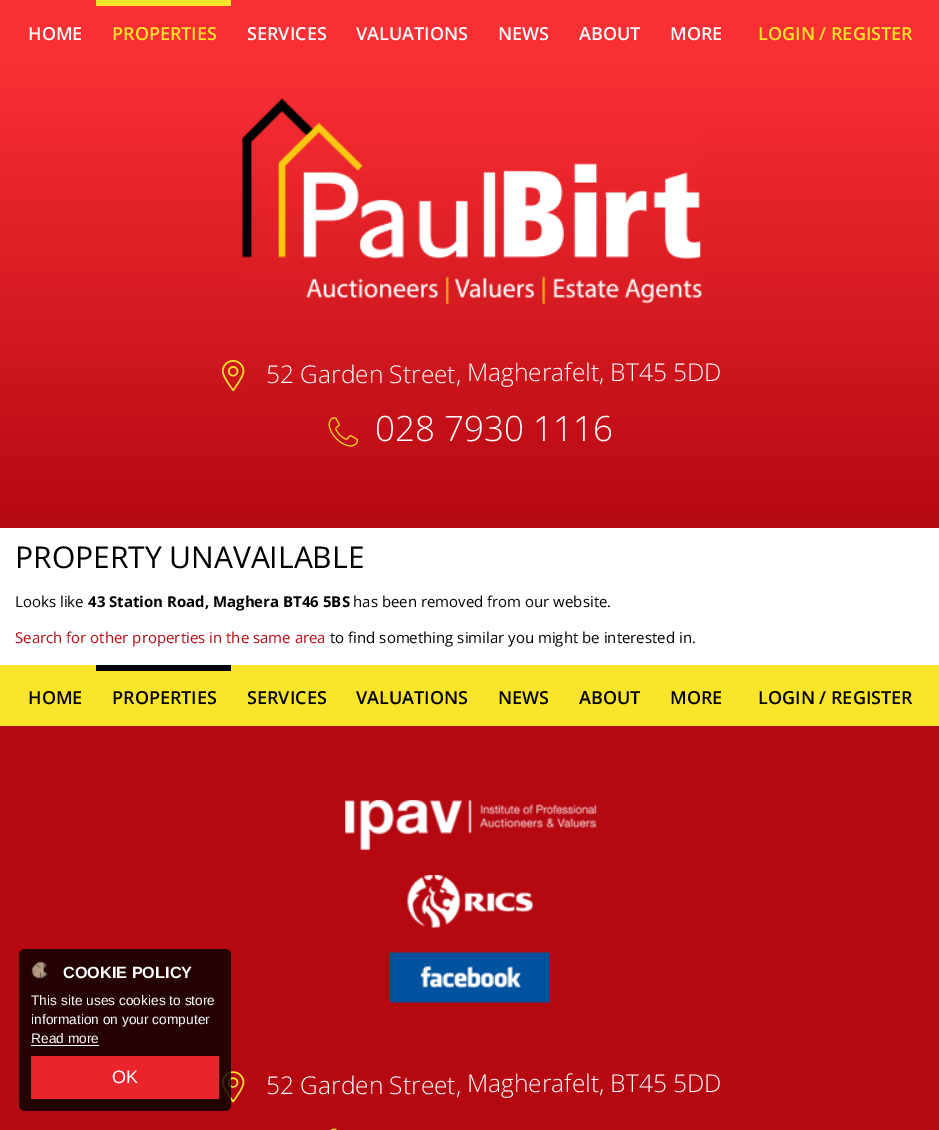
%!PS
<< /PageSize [939 1130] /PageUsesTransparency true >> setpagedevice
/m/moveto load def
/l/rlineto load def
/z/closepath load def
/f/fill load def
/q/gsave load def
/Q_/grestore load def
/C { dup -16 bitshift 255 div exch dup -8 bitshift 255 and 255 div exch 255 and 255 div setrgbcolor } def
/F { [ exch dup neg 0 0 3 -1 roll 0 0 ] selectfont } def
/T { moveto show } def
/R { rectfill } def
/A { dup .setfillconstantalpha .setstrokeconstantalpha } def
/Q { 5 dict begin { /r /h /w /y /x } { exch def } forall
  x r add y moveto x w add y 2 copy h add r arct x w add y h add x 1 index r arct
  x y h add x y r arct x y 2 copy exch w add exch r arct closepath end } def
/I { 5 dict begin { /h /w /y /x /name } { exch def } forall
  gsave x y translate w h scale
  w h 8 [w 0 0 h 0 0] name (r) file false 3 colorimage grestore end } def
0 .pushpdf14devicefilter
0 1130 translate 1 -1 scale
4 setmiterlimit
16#FFFFFF C
0 0 939 1130 R
16#FA2F34 C
0 0 939 61 R
/OpenSans-SemiBold 18 F
16#FFFFFF C
(HOME) 28 40 T
16#FBE52A C
96 0 135 6 R
(PROPERTIES) 112 40 T
16#FFFFFF C
(SERVICES) 247 40 T
(VALUATIONS) 356 40 T
(NEWS) 498 40 T
(ABOUT) 579 40 T
(MORE) 670 40 T
16#FBE52A C
(LOGIN / REGISTER) 758 40 T
q 0 61 m 939 0 l 0 467 l -939 0 l z clip newpath
<< /ShadingType 2 /ColorSpace /DeviceRGB /Coords [470 61 470 528] /Extend [true true] /Function << /FunctionType 3 /Domain [0 1] /Functions [<< /FunctionType 2 /Domain [0 1] /C0 [.98 .184 .204] /C1 [.98 .184 .204] /N 1 >> << /FunctionType 2 /Domain [0 1] /C0 [.98 .184 .204] /C1 [.71 .031 .067] /N 1 >>] /Bounds [.01] /Encode [0 1 0 1] >> >> shfill Q_
(1.rgb) 242 98 460 206 I
(2.rgb) 221 360 24 31 I
/OpenSans-Light 24.5 F
16#FFFFFF C
(52 Garden Street,) 266 383 T
(Magherafelt, BT45 5DD) 467 381 T
(3.rgb) 328 417 30 30 I
/OpenSans-Light 35 F
(028 7930 1116) 375 441 T
/OpenSans-Regular 30 F
16#000000 C
(PROPERTY UNAVAILABLE) 15 568 T
/OpenSans-Regular 15 F
(Looks like) 15 607 T
/OpenSans-Bold 15 F
(43 Station Road, Maghera BT46 5BS) 88 607 T
/OpenSans-Regular 15 F
(has been removed from our website.) 353 607 T
16#B50811 C
(Search for other properties in the same area) 15 643 T
16#000000 C
(to find something similar you might be interested in.) 330 643 T
16#FBE52A C
0 665 939 61 R
/OpenSans-SemiBold 18 F
16#000000 C
(HOME) 28 704 T
96 665 135 6 R
(PROPERTIES) 112 704 T
(SERVICES) 247 704 T
(VALUATIONS) 356 704 T
(NEWS) 498 704 T
(ABOUT) 579 704 T
(MORE) 670 704 T
(LOGIN / REGISTER) 758 704 T
16#B50811 C
0 726 939 404 R
(8.rgb) 221 1071 24 32 I
0.8 A
16#000000 C
19 949 212 162 6 Q f
1 A
(4.rgb) 31 961 17 18 I
/LiberationSans-Bold 16.25 F
16#FFFFFF C
(COOKIE POLICY) 63 978 T
/LiberationSans-Regular 13.75 F
(This site uses cookies to store) 31 1005 T
(information on your computer) 31 1024 T
(Read more) 31 1043 T
31 1045 68 1 R
16#E9242B C
31 1056 188 43 R
/LiberationSans-Regular 18 F
16#FFFFFF C
(OK) 112 1083 T
(5.rgb) 345 800 252 50 I
(6.rgb) 407 875 126 53 I
(7.rgb) 390 952 160 51 I
/OpenSans-Light 24.5 F
(52 Garden Street,) 266 1094 T
(Magherafelt, BT45 5DD) 467 1092 T
(9.rgb) 330 1128 7 2 I
.poppdf14devicefilter showpage
